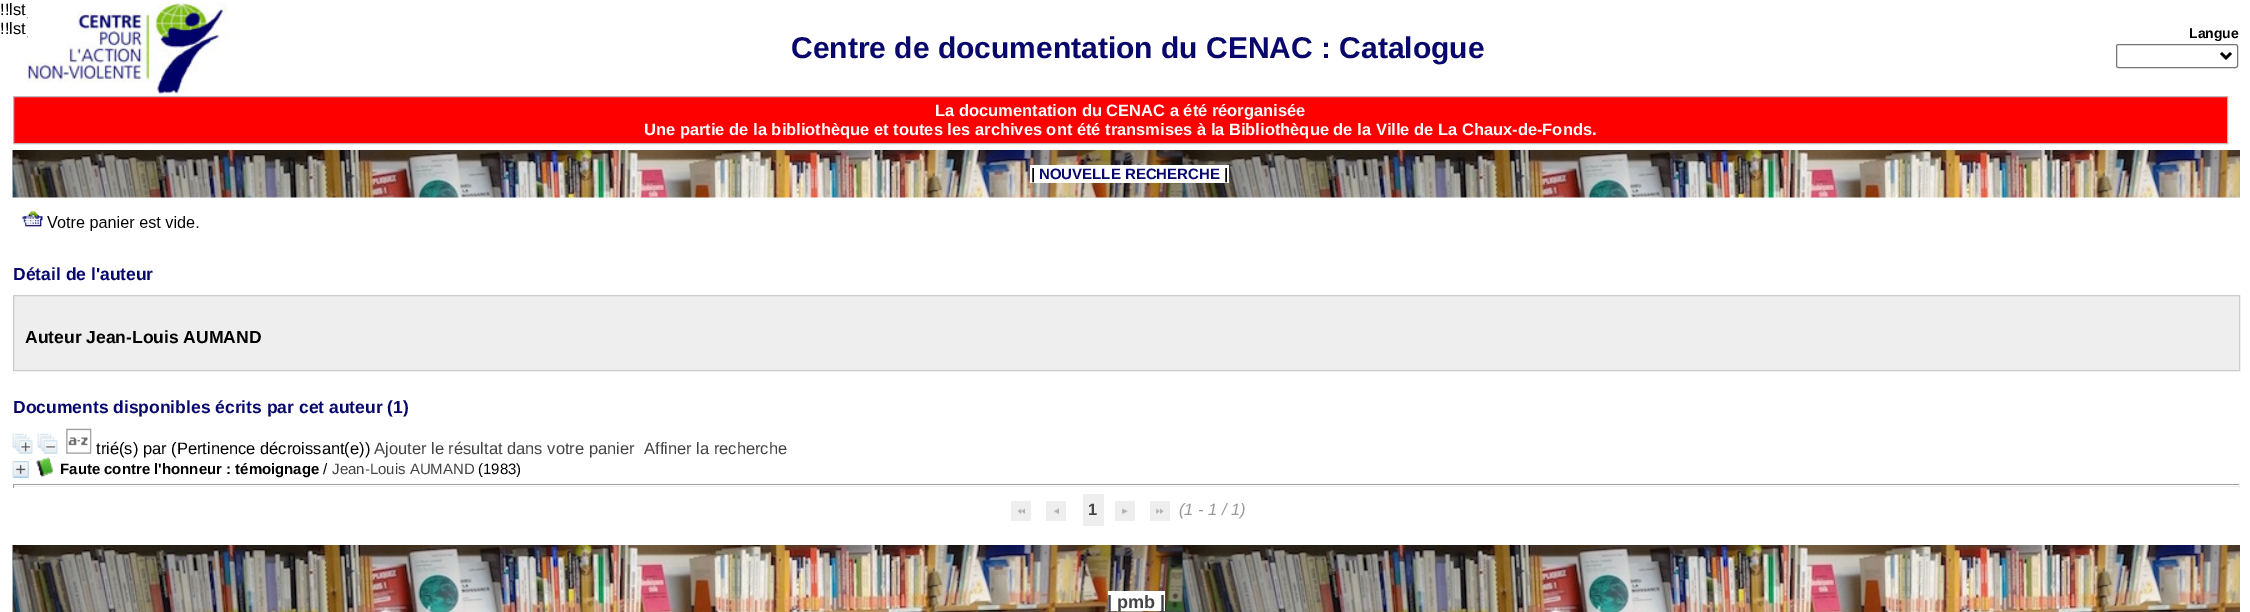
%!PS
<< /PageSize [2250 612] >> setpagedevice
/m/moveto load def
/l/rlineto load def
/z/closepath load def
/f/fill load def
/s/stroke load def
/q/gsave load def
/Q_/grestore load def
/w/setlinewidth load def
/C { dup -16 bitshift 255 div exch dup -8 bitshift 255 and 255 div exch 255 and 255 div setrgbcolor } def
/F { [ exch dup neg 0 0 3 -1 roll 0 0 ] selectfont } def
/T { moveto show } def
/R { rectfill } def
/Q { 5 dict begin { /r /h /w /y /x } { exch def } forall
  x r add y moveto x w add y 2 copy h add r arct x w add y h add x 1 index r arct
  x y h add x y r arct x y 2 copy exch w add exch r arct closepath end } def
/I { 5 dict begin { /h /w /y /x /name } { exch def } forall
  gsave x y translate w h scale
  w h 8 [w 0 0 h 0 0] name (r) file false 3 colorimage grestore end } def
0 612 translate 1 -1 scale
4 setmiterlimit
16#FFFFFF C
0 0 2250 612 R
/LiberationSans-Regular 16.5 F
16#000000 C
(!!lst) 0 15 T
(!!lst) 0 34 T
(1.rgb) 27 2 201 92 I
/LiberationSans-Bold 14 F
(Langue) 2189 38 T
16#767676 C
2116.5 44.5 121 23 2 Q s
16#000000 C
2.5 w
2221 53 m 5 5 l 5 -5 l s
/LiberationSans-Bold 30 F
16#08086C C
(Centre de documentation du CENAC : Catalogue) 791 58 T
16#FF0000 C
13.5 96.5 m 2214 0 l 0 47 l -2214 0 l z q f Q_
16#BBBBBB C
1 w
s
/LiberationSans-Bold 16.5 F
16#FFFFFF C
(La documentation du CENAC a été réorganisée) 935 116 T
(Une partie de la bibliothèque et toutes les archives ont été transmises à la Bibliothèque de la Ville de La Chaux-de-Fonds.) 644 135 T
(2.rgb) 12 150 2228 48 I
1030 165 199 18 R
/LiberationSans-Bold 15 F
16#000000 C
(|) 1031 179 T
16#08086C C
(NOUVELLE RECHERCHE) 1039 179 T
16#000000 C
(|) 1224 179 T
(3.rgb) 22 211 177 20 I
/LiberationSans-Bold 17.5 F
16#08086C C
(Détail de l'auteur) 13 280 T
16#EEEEEE C
13.5 295.5 m 2226 0 l 0 75 l -2226 0 l z q f Q_
16#CCCCCC C
s
16#000000 C
(Auteur Jean-Louis AUMAND) 25 343 T
16#08086C C
(Documents disponibles écrits par cet auteur \(1\)) 13 413 T
(4.rgb) 12 433 21 21 I
(5.rgb) 37 433 21 21 I
(6.rgb) 66 428 26 26 I
/LiberationSans-Regular 16.5 F
16#000000 C
(trié\(s\) par \(Pertinence décroissant\(e\)\)) 96 454 T
16#444444 C
(Ajouter le résultat dans votre panier) 374 454 T
(Affiner la recherche) 644 454 T
16#8CC6FF C
13 461 16 17 R
(7.rgb) 12 461 17 17 I
(8.rgb) 36 457 17 20 I
/LiberationSans-Bold 15 F
16#000000 C
(Faute contre l'honneur : témoignage) 60 474 T
/LiberationSans-Regular 15 F
(/) 323 474 T
16#444444 C
(Jean-Louis AUMAND) 332 474 T
16#000000 C
(\(1983\)) 478 474 T
16#9F9F9F C
13 484 2227 1 R
16#EEEEEE C
2239 484 1 4 R
13 486 2227 1 R
16#9F9F9F C
13 484 1 4 R
16#EEEEEE C
1011 501 20 20 R
(9.rgb) 1017 508 8 6 I
1046 501 20 20 R
(10.rgb) 1053 508 6 6 I
1083 494 21 32 R
/LiberationSans-Bold 16.5 F
16#444444 C
(1) 1088 515 T
16#EEEEEE C
1115 501 20 20 R
(11.rgb) 1122 508 6 6 I
1150 501 20 20 R
(12.rgb) 1156 508 8 6 I
/LiberationSans-Italic 16.5 F
16#999999 C
(\(1 - 1 / 1\)) 1179 515 T
(13.rgb) 12 545 2228 67 I
16#FFFFFF C
1108 591 57 20 R
/LiberationSans-Bold 18 F
16#444444 C
(| pmb |) 1107 608 T
showpage
